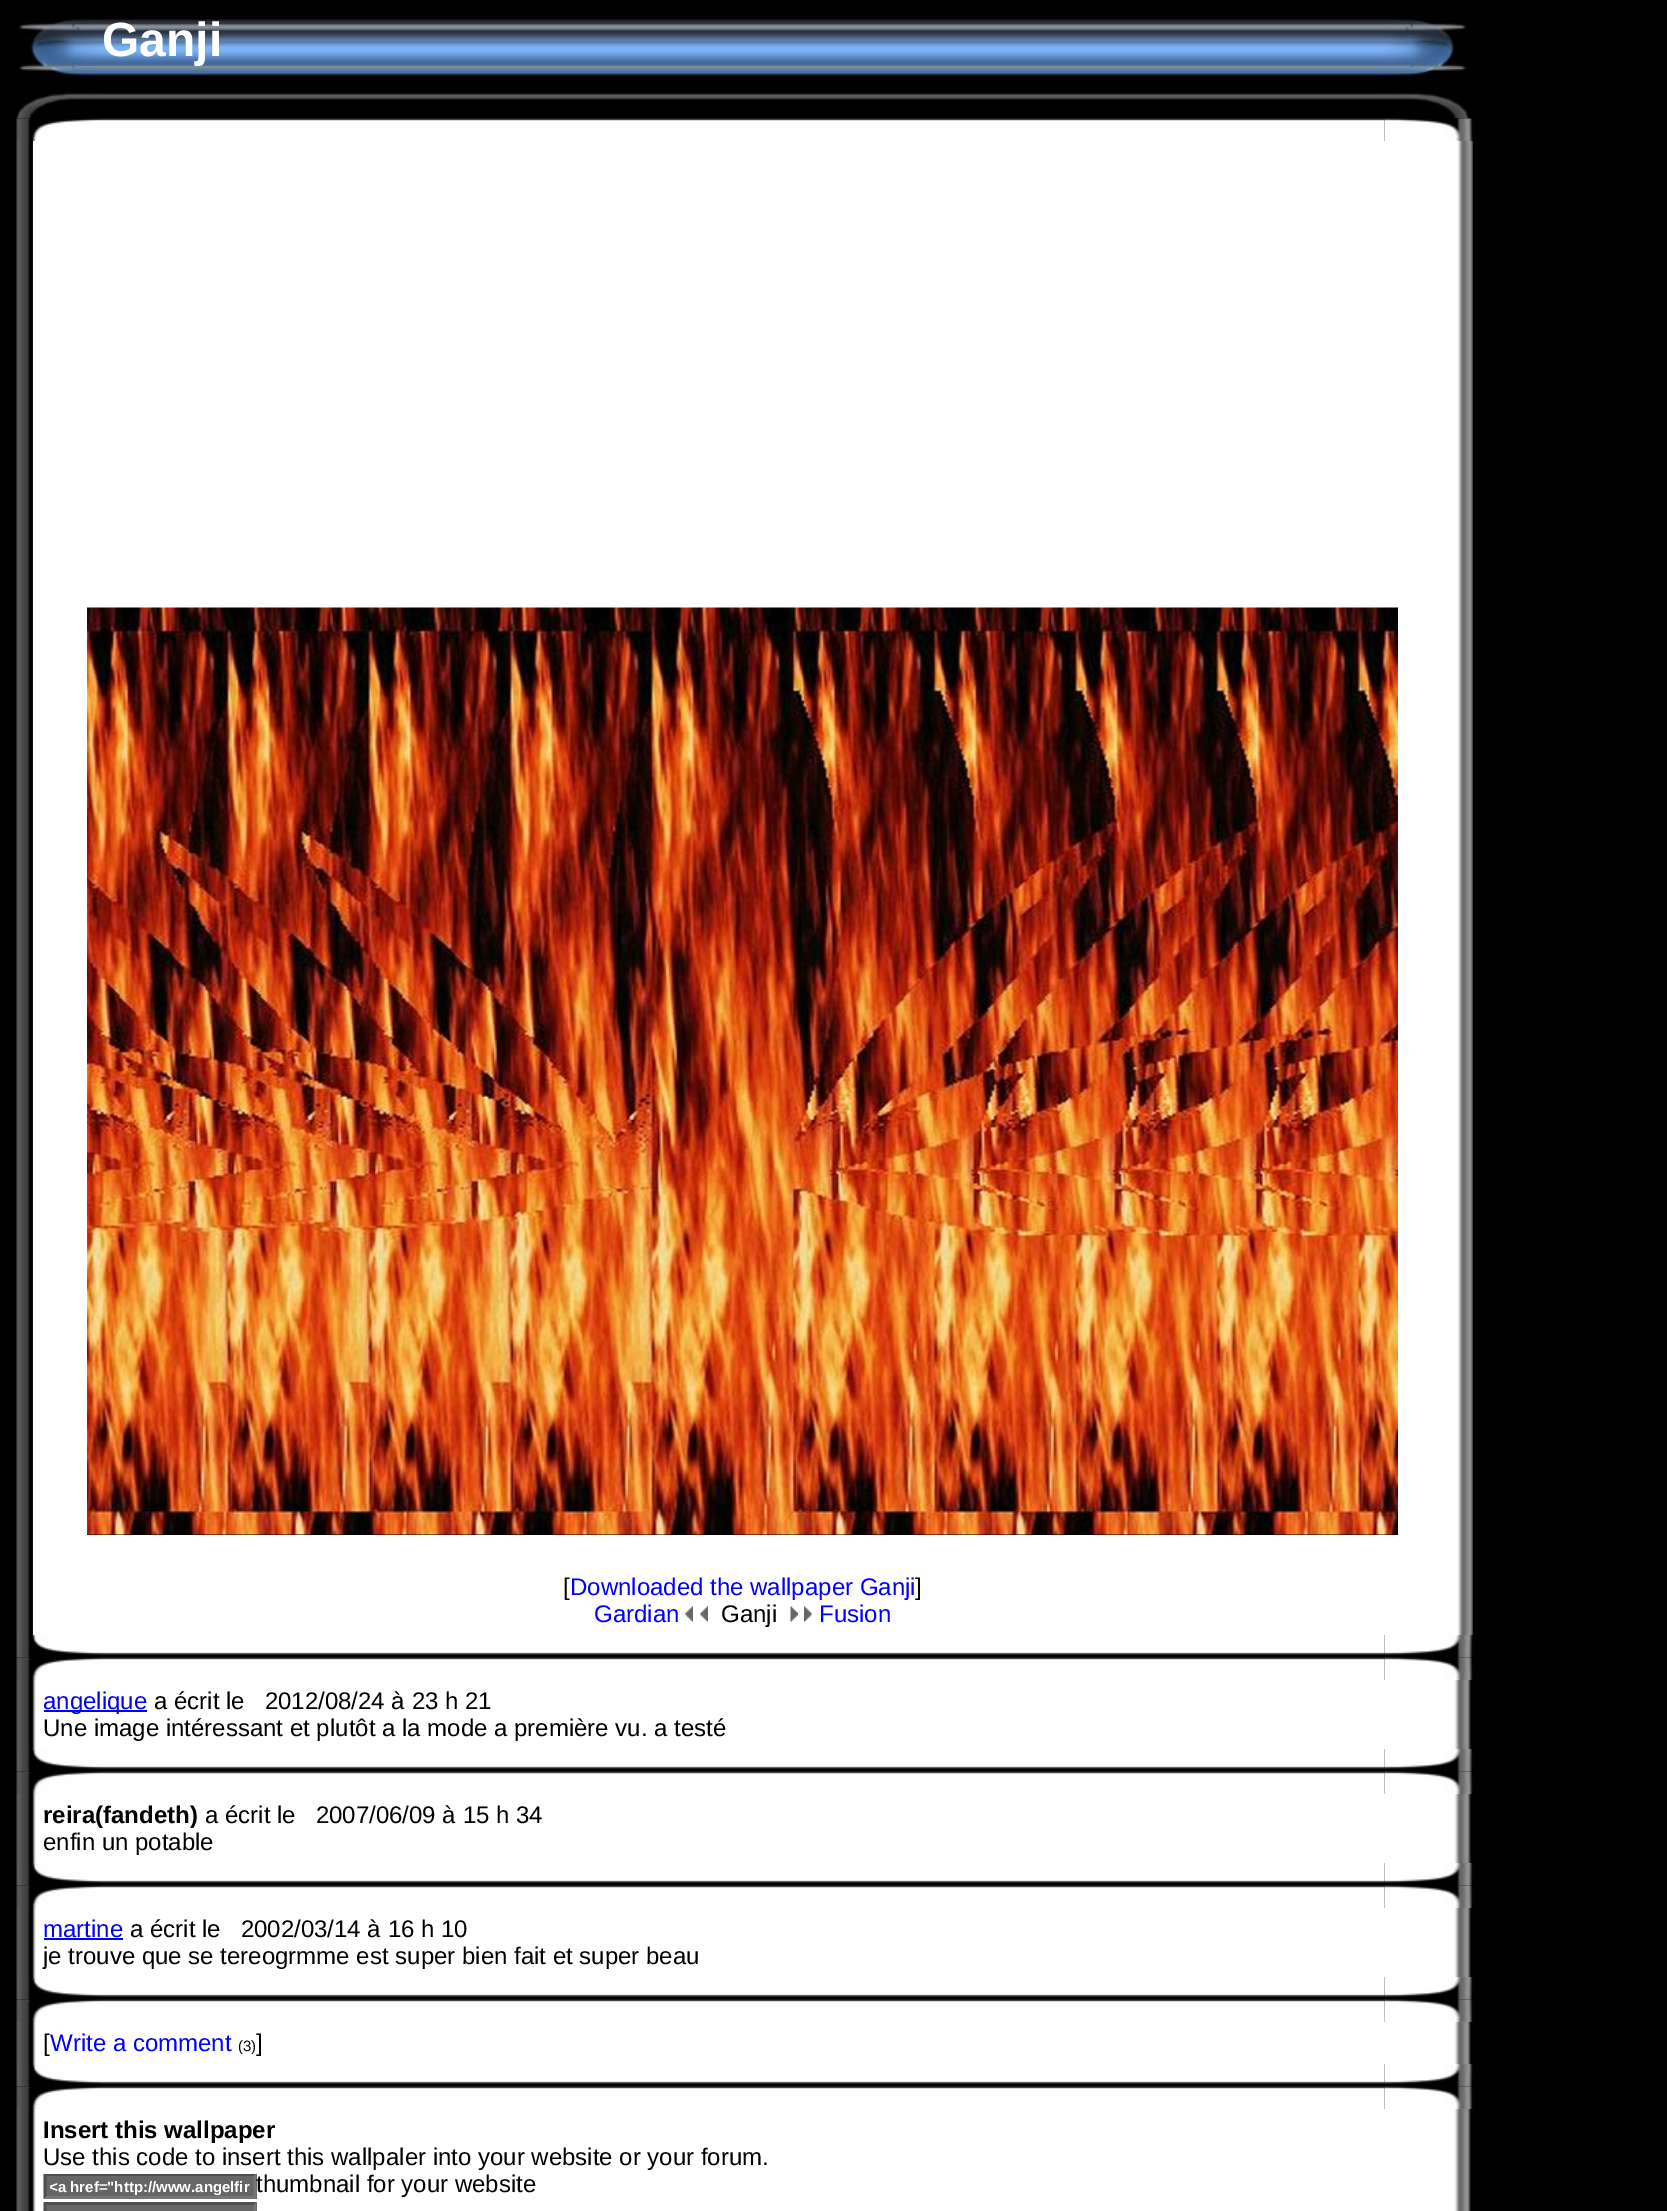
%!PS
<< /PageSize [1667 2211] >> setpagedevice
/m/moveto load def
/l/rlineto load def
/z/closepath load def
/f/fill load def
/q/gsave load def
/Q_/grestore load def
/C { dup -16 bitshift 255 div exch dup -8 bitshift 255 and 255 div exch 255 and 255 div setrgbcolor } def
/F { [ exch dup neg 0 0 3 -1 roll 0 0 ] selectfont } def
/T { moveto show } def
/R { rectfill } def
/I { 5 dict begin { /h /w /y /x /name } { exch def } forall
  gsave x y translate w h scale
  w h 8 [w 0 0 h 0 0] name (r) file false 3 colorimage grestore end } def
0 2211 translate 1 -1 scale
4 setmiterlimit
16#000000 C
0 0 1667 2211 R
(1.rgb) 12 17 90 102 I
(2.rgb) 102 16 1281 84 I
/LiberationSans-Bold 48 F
16#FFFFFF C
(Ganji) 102 56 T
(3.rgb) 1383 16 86 103 I
(4.rgb) 16 118 86 23 I
(5.rgb) 102 118 1283 23 I
(6.rgb) 1384 118 89 23 I
(7.rgb) 16 141 17 1494 I
33 141 1419 1494 R
16#000000 C
87 1534 1311 1 R
(8.rgb) 87 607 1311 928 I
/LiberationSans-Regular 24 F
([) 563 1595 T
16#0000FF C
(Downloaded the wallpaper Ganji) 570 1595 T
16#000000 C
(]) 915 1595 T
16#0000FF C
(Gardian) 594 1622 T
(9.rgb) 685 1606 8 16 I
(9.rgb) 700 1606 8 16 I
16#000000 C
(Ganji) 721 1622 T
(10.rgb) 790 1606 8 16 I
(11.rgb) 804 1606 8 16 I
16#0000FF C
(Fusion) 819 1622 T
(12.rgb) 1452 141 21 1494 I
(13.rgb) 16 1635 86 23 I
(14.rgb) 102 1635 1283 20 I
(15.rgb) 1384 1635 89 23 I
(16.rgb) 16 1657 86 23 I
(5.rgb) 102 1657 1283 23 I
(17.rgb) 1384 1657 89 23 I
(18.rgb) 16 1680 20 69 I
16#FFFFFF C
36 1680 1413 69 R
16#0000FF C
44 1710 103 2 R
(angelique) 43 1709 T
16#000000 C
(a écrit le   2012/08/24 à 23 h 21) 154 1709 T
(Une image intéressant et plutôt a la mode a première vu. a testé) 43 1736 T
(19.rgb) 1449 1680 22 69 I
(13.rgb) 16 1749 86 23 I
(14.rgb) 102 1749 1283 20 I
(15.rgb) 1384 1749 89 23 I
(16.rgb) 16 1771 86 23 I
(5.rgb) 102 1771 1283 23 I
(17.rgb) 1384 1771 89 23 I
(18.rgb) 16 1794 20 69 I
16#FFFFFF C
36 1794 1413 69 R
/LiberationSans-Bold 24 F
16#000000 C
(reira\(fandeth\)) 43 1823 T
/LiberationSans-Regular 24 F
(a écrit le   2007/06/09 à 15 h 34) 205 1823 T
(enfin un potable) 43 1850 T
(19.rgb) 1449 1794 22 69 I
(13.rgb) 16 1863 86 23 I
(14.rgb) 102 1863 1283 20 I
(15.rgb) 1384 1863 89 23 I
(16.rgb) 16 1885 86 23 I
(5.rgb) 102 1885 1283 23 I
(17.rgb) 1384 1885 89 23 I
(18.rgb) 16 1908 20 69 I
16#FFFFFF C
36 1908 1413 69 R
16#0000FF C
(martine) 43 1937 T
44 1938 79 2 R
16#000000 C
(a écrit le   2002/03/14 à 16 h 10) 130 1937 T
(je trouve que se tereogrmme est super bien fait et super beau) 43 1964 T
(19.rgb) 1449 1908 22 69 I
(13.rgb) 16 1977 86 23 I
(14.rgb) 102 1977 1283 20 I
(15.rgb) 1384 1977 89 23 I
(16.rgb) 16 1999 86 23 I
(5.rgb) 102 1999 1283 23 I
(17.rgb) 1384 1999 89 23 I
(20.rgb) 16 2022 20 42 I
16#FFFFFF C
36 2022 1413 42 R
16#000000 C
([) 43 2051 T
16#0000FF C
(Write a comment) 50 2051 T
/LiberationSans-Regular 15 F
16#000000 C
(\(3\)) 238 2051 T
/LiberationSans-Regular 24 F
(]) 256 2051 T
(21.rgb) 1449 2022 22 42 I
(13.rgb) 16 2064 86 23 I
(14.rgb) 102 2064 1283 20 I
(15.rgb) 1384 2064 89 23 I
(16.rgb) 16 2086 86 23 I
(5.rgb) 102 2086 1283 23 I
(17.rgb) 1384 2086 89 23 I
(22.rgb) 16 2109 20 102 I
16#FFFFFF C
36 2109 1413 102 R
/LiberationSans-Bold 24 F
16#000000 C
(Insert this wallpaper) 43 2138 T
/LiberationSans-Regular 24 F
(Use this code to insert this wallpaler into your website or your forum.) 43 2165 T
16#666666 C
44 2174 213 25 R
16#4F4F4F C
44 2174 m 212 0 l -2 2 l -208 0 l z f
16#767676 C
256.5 2173.5 m 0 25.5 l -3 -3 l 0 -19.5 l z f
256 2199 m -212 0 l 2 -3 l 208 0 l z f
16#4F4F4F C
43.5 2199 m 0 -25.5 l 3 3 l 0 19.5 l z f
q
50 2178 201 17 rectclip
/LiberationSans-Bold 15 F
16#FFFFFF C
(<a href="http://www.angelfir) 49 2192 T
Q_
16#000000 C
(thumbnail for your website) 256 2192 T
16#666666 C
44 2202 213 9 R
16#4F4F4F C
44 2202 m 212 0 l -2 3 l -208 0 l z f
16#767676 C
256.5 2202 m 0 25.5 l -3 -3 l 0 -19.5 l z f
16#4F4F4F C
43.5 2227.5 m 0 -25.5 l 3 3 l 0 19.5 l z f
(23.rgb) 1449 2109 22 102 I
showpage
